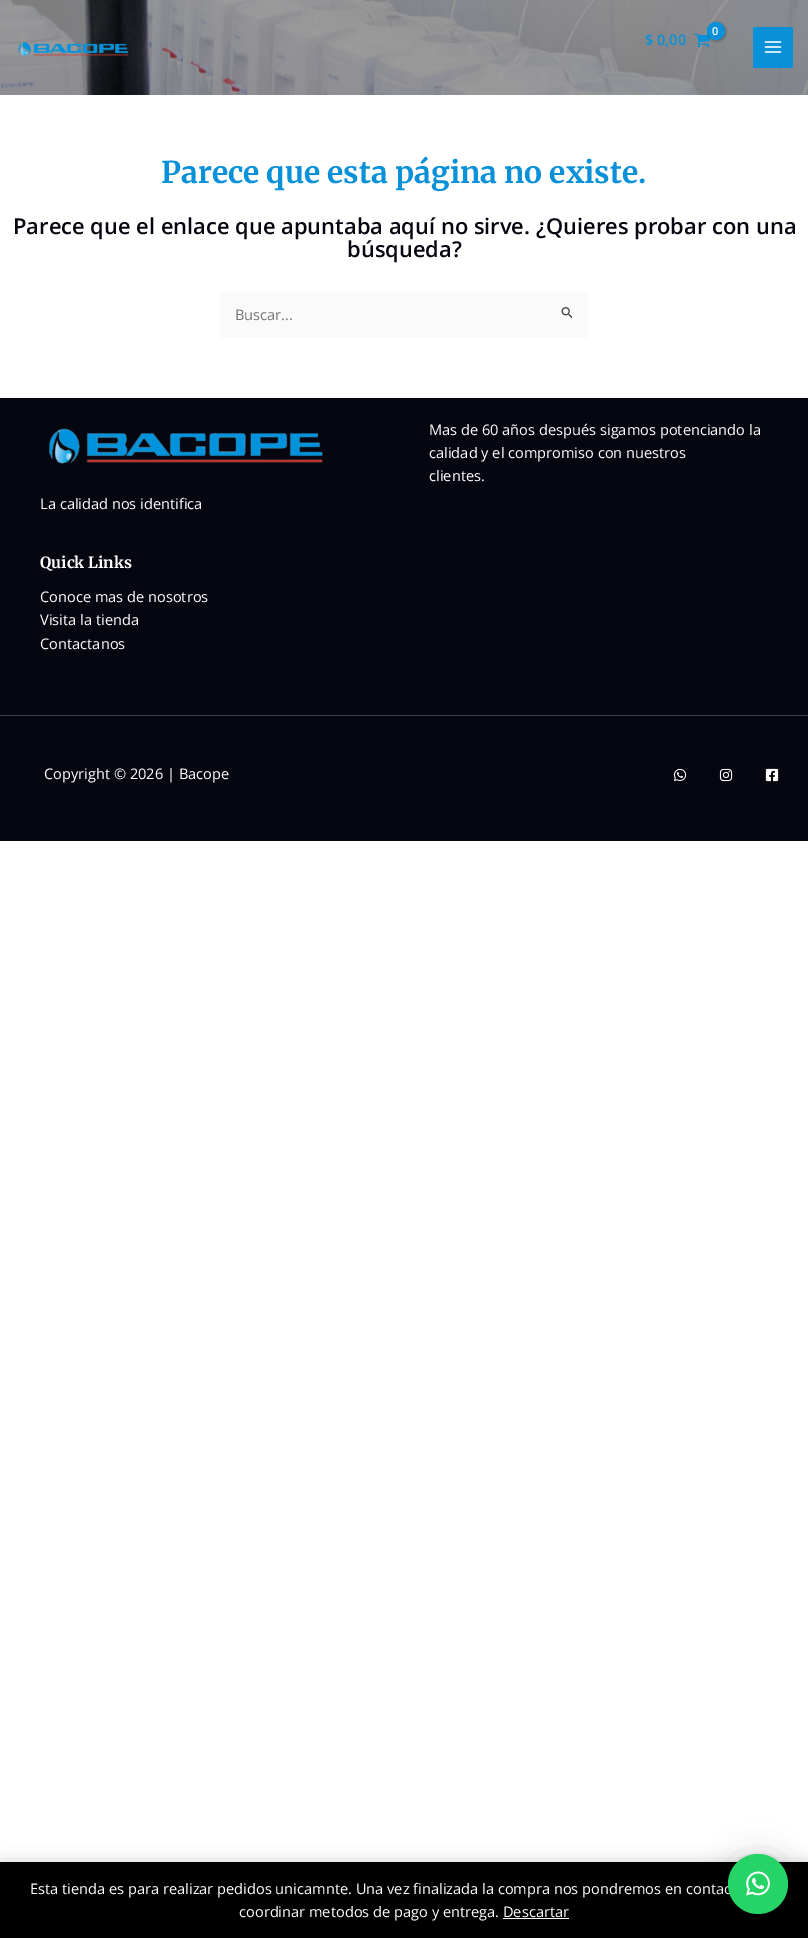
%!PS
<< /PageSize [808 1938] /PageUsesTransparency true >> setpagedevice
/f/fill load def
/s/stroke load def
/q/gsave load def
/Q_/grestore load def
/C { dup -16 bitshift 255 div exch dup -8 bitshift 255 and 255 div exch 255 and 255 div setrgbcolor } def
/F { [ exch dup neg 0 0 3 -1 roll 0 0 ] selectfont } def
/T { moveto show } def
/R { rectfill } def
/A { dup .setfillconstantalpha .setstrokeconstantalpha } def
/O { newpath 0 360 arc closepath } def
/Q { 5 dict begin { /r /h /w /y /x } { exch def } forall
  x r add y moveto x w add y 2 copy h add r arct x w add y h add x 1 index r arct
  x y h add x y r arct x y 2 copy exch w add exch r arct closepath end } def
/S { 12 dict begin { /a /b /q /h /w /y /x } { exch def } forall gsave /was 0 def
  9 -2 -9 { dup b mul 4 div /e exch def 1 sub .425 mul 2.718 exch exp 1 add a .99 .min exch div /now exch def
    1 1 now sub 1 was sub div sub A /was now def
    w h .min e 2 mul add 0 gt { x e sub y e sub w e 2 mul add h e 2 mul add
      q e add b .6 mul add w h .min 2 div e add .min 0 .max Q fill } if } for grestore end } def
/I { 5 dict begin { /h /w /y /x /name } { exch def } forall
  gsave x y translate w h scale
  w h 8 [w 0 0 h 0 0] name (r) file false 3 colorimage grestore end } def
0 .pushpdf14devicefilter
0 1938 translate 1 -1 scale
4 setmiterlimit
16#FFFFFF C
0 0 808 1938 R
(1.rgb) 0 0 808 95 I
(2.rgb) 694 33 17 15 I
16#000000 C
708 23 18 18 9 1.5 .3 S
16#0891D8 C
716 31 9 O f
/OpenSans-SemiBold 11 F
16#FFFFFF C
(0) 712 35 T
/OpenSans-SemiBold 14.6 F
16#0891D8 C
($ 0,00) 645 45 T
753 27 40 41 2 Q f
(3.rgb) 764 41 18 12 I
(4.rgb) 18 42 111 14 I
/Merriweather-Light 30 F
(Parece que esta página no existe.) 161 183 T
/OpenSans-SemiBold 21.9 F
16#05060F C
(Parece que el enlace que apuntaba aquí no sirve. ¿Quieres probar con una) 13 234 T
(búsqueda?) 347 257 T
16#FAFAFA C
219.5 290.5 369 48 1.5 Q q f Q_
16#FFFFFF C
s
/OpenSans-Regular 14.6 F
16#757575 C
(Buscar...) 235 320 T
(5.rgb) 561 307 11 12 I
16#05060F C
0 398 808 443 R
16#FFFFFF C
(Mas de 60 años después sigamos potenciando la) 429 435 T
(calidad y el compromiso con nuestros) 429 458 T
(clientes.) 429 481 T
(6.rgb) 49 428 274 36 I
(La calidad nos identifica) 40 509 T
/Merriweather-Light 15.5 F
(Quick Links) 40 568 T
/OpenSans-Regular 14.6 F
(Conoce mas de nosotros) 40 602 T
(Visita la tienda) 40 625 T
(Contactanos) 40 649 T
16#3D3E43 C
0 715 808 1 R
16#FFFFFF C
(Copyright © 2026 | Bacope) 44 779 T
(7.rgb) 673 768 14 13 I
(8.rgb) 719 768 14 14 I
(9.rgb) 765 768 14 14 I
16#000000 C
0 1863 808 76 0 7.5 .2 S
0 1862 808 76 R
16#FFFFFF C
(Esta tienda es para realizar pedidos unicamnte. Una vez finalizada la compra nos pondremos en contac) 30 1894 T
(coordinar metodos de pago y entrega. Descartar) 239 1917 T
503 1918 66 1 R
16#000000 C
728 1856 60 60 30 16 .16 S
728 1855 60 60 30 3 .06 S
16#25D366 C
758 1884 30 O f
(10.rgb) 746 1871 24 25 I
.poppdf14devicefilter showpage
